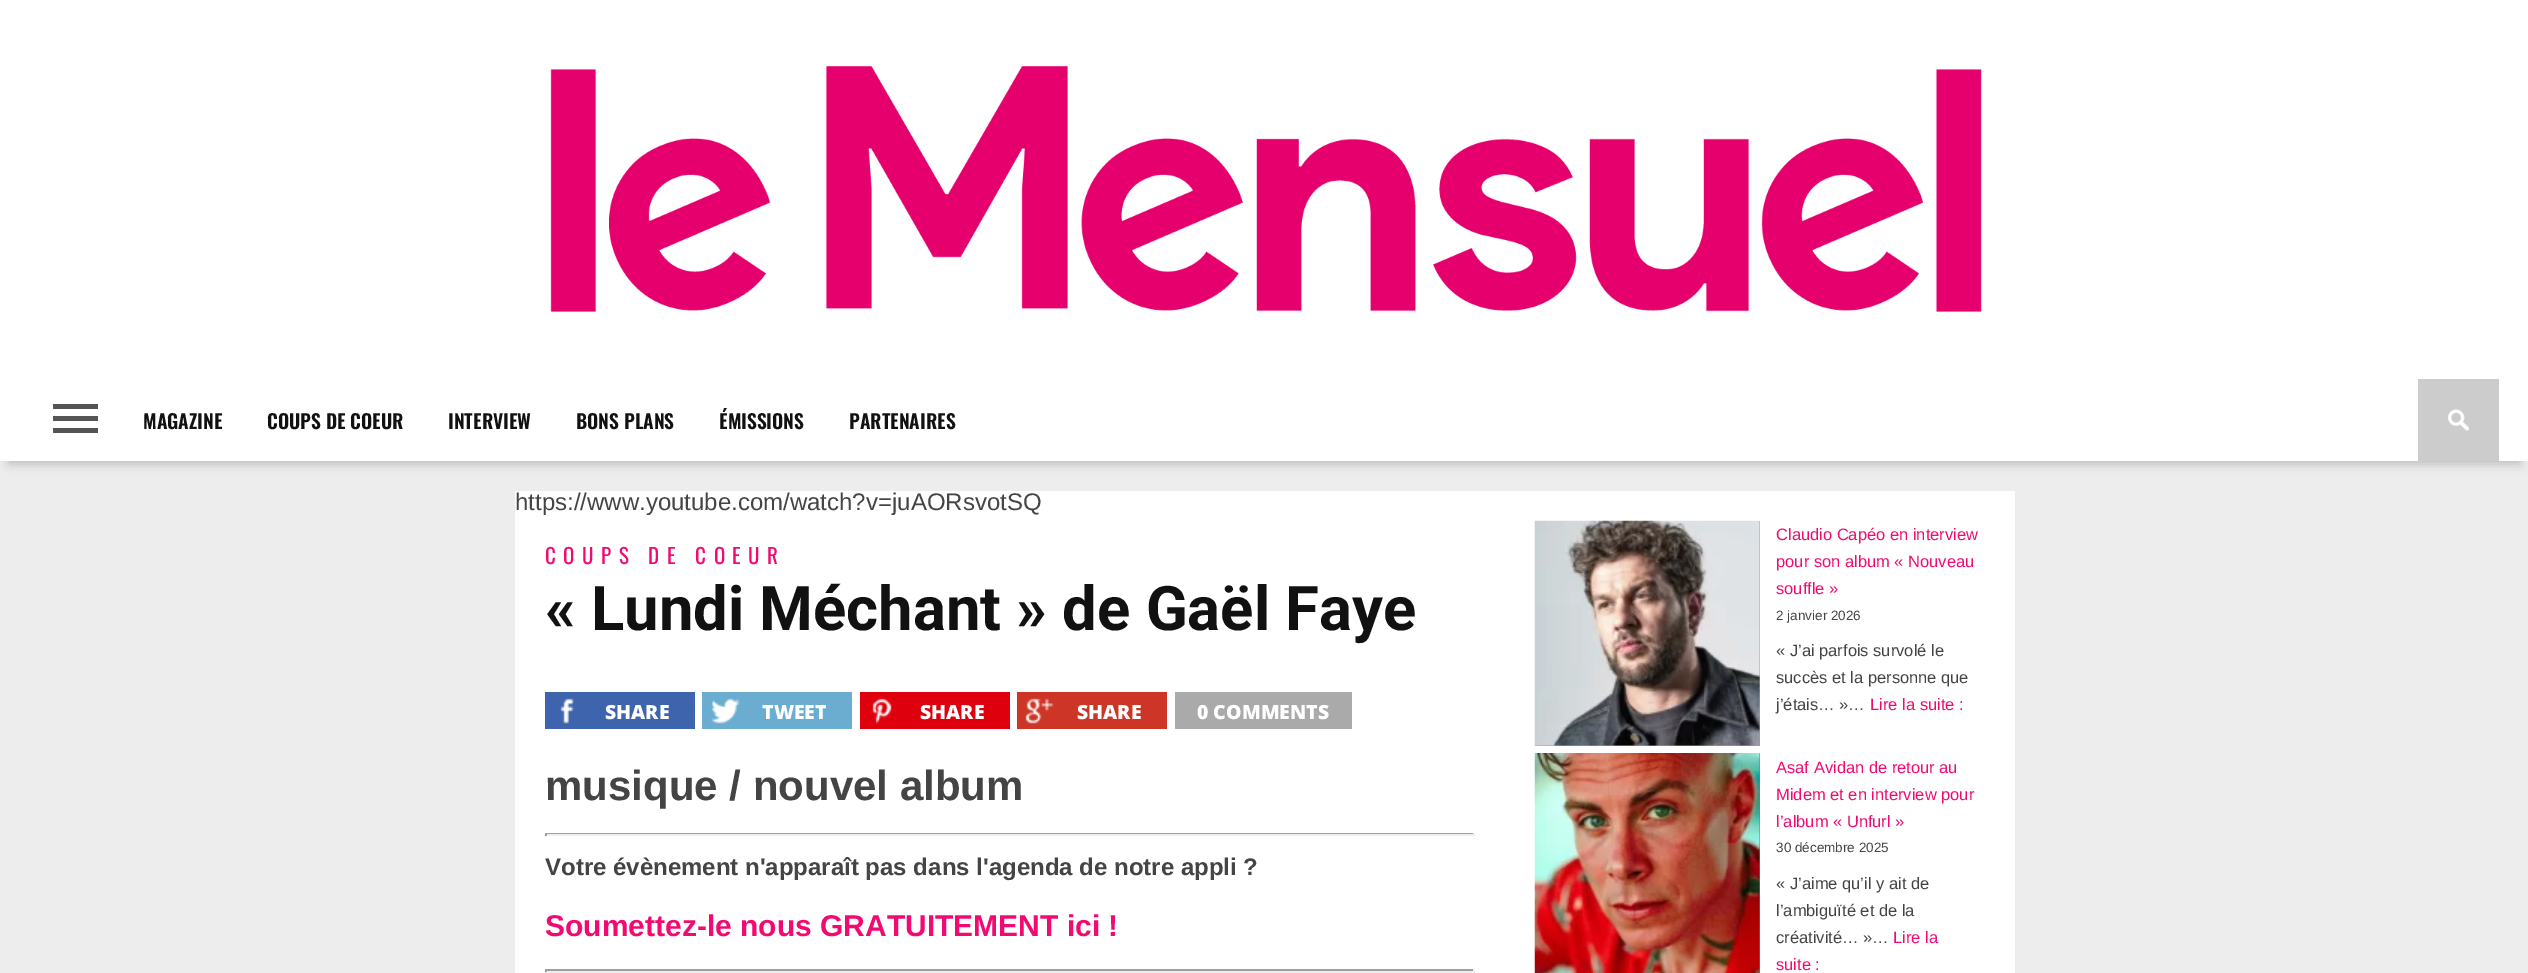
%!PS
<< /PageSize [2528 973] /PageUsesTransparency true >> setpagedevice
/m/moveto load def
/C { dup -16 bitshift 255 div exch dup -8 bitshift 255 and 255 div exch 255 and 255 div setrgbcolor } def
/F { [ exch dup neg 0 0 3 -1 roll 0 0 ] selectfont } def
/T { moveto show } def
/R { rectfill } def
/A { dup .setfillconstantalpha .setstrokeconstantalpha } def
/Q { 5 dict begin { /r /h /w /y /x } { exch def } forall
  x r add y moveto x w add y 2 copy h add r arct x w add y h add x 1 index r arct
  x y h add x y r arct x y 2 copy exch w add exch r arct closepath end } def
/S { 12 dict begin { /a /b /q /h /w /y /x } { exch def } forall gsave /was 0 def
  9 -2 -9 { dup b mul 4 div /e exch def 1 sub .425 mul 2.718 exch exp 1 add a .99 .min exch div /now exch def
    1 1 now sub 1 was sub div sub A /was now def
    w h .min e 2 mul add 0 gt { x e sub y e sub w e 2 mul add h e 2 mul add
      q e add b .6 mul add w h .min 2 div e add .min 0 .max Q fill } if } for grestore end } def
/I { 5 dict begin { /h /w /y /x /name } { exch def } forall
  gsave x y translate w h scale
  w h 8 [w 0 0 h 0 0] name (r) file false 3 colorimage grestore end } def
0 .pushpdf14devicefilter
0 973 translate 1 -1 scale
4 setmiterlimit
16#EDEDED C
0 0 2528 973 R
16#FFFFFF C
0 0 2528 380 R
(1.rgb) 550 66 1432 246 I
16#000000 C
9 401 2511 63 0 5 .2 S
16#FFFFFF C
0 380 2528 81 R
16#555555 C
53 404 45 5 R
53 416 45 5 R
53 428 45 5 R
/Oswald-SemiBold 19.5 F
16#111111 C
(MAGAZINE) 143 429 T
(COUPS DE COEUR) 267 429 T
(INTERVIEW) 448 429 T
(BONS PLANS) 576 429 T
(ÉMISSIONS) 719 429 T
(PARTENAIRES) 849 429 T
16#CCCCCC C
2418 379 81 82 R
(2.rgb) 2448 409 21 22 I
16#FFFFFF C
515 491 1500 482 R
/LiberationSans-Regular 24 F
16#444444 C
(https://www.youtube.com/watch?v=juAORsvotSQ) 515 510 T
/Oswald-Regular 21 F
16#F00A71 C
545 564 m 7.5 0 (COUPS DE COEUR) ashow
/Roboto-Bold 61.5 F
16#111111 C
(« Lundi Méchant » de Gaël Faye) 545 630 T
16#3E64AD C
545 692 150 37 R
(3.rgb) 560 698 14 26 I
/OpenSans-ExtraBold 19.5 F
16#FFFFFF C
(SHARE) 605 719 T
16#6AADD1 C
702 692 150 37 R
(4.rgb) 711 698 29 26 I
16#FFFFFF C
(TWEET) 762 719 T
16#DE010D C
860 692 150 37 R
(5.rgb) 872 698 20 26 I
16#FFFFFF C
(SHARE) 920 719 T
16#CD3627 C
1017 692 150 37 R
(6.rgb) 1025 698 29 26 I
16#FFFFFF C
(SHARE) 1077 719 T
16#AAAAAA C
1175 692 177 37 R
16#FFFFFF C
(0 COMMENTS) 1197 719 T
/LiberationSans-Bold 42 F
16#444444 C
(musique / nouvel album) 545 800 T
16#9F9F9F C
545 833 930 1 R
16#EEEEEE C
1473 833 2 3 R
545 834 930 2 R
16#9F9F9F C
545 833 2 3 R
/LiberationSans-Bold 24 F
16#444444 C
(Votre évènement n'apparaît pas dans l'agenda de notre appli ?) 545 875 T
/LiberationSans-Bold 30 F
16#F00A71 C
(Soumettez-le nous GRATUITEMENT ici !) 545 936 T
16#9F9F9F C
545 969 930 2 R
16#EEEEEE C
1473 969 2 3 R
545 971 930 2 R
16#9F9F9F C
545 969 2 3 R
16#A4A2A2 C
1535 521 225 225 R
(7.rgb) 1534 520 226 226 I
/LiberationSans-Regular 16.5 F
16#F00A71 C
(Claudio Capéo en interview) 1776 540 T
(pour son album « Nouveau) 1776 567 T
(souffle ») 1776 594 T
/LiberationSans-Regular 13.5 F
16#444444 C
(2 janvier 2026) 1776 620 T
/LiberationSans-Regular 16.5 F
(« J’ai parfois survolé le) 1776 656 T
(succès et la personne que) 1776 683 T
(j’étais… »…) 1776 710 T
16#F00A71 C
(Lire la suite :) 1870 710 T
16#A96B5A C
1759 753 1 220 R
(8.rgb) 1534 753 226 220 I
16#F00A71 C
(Asaf Avidan de retour au) 1776 773 T
(Midem et en interview pour) 1776 800 T
(l’album « Unfurl ») 1776 827 T
/LiberationSans-Regular 13.5 F
16#444444 C
(30 décembre 2025) 1776 852 T
/LiberationSans-Regular 16.5 F
(« J’aime qu’il y ait de) 1776 889 T
(l’ambiguïté et de la) 1776 916 T
(créativité… »…) 1776 943 T
16#F00A71 C
(Lire la) 1893 943 T
(suite :) 1776 970 T
.poppdf14devicefilter showpage
